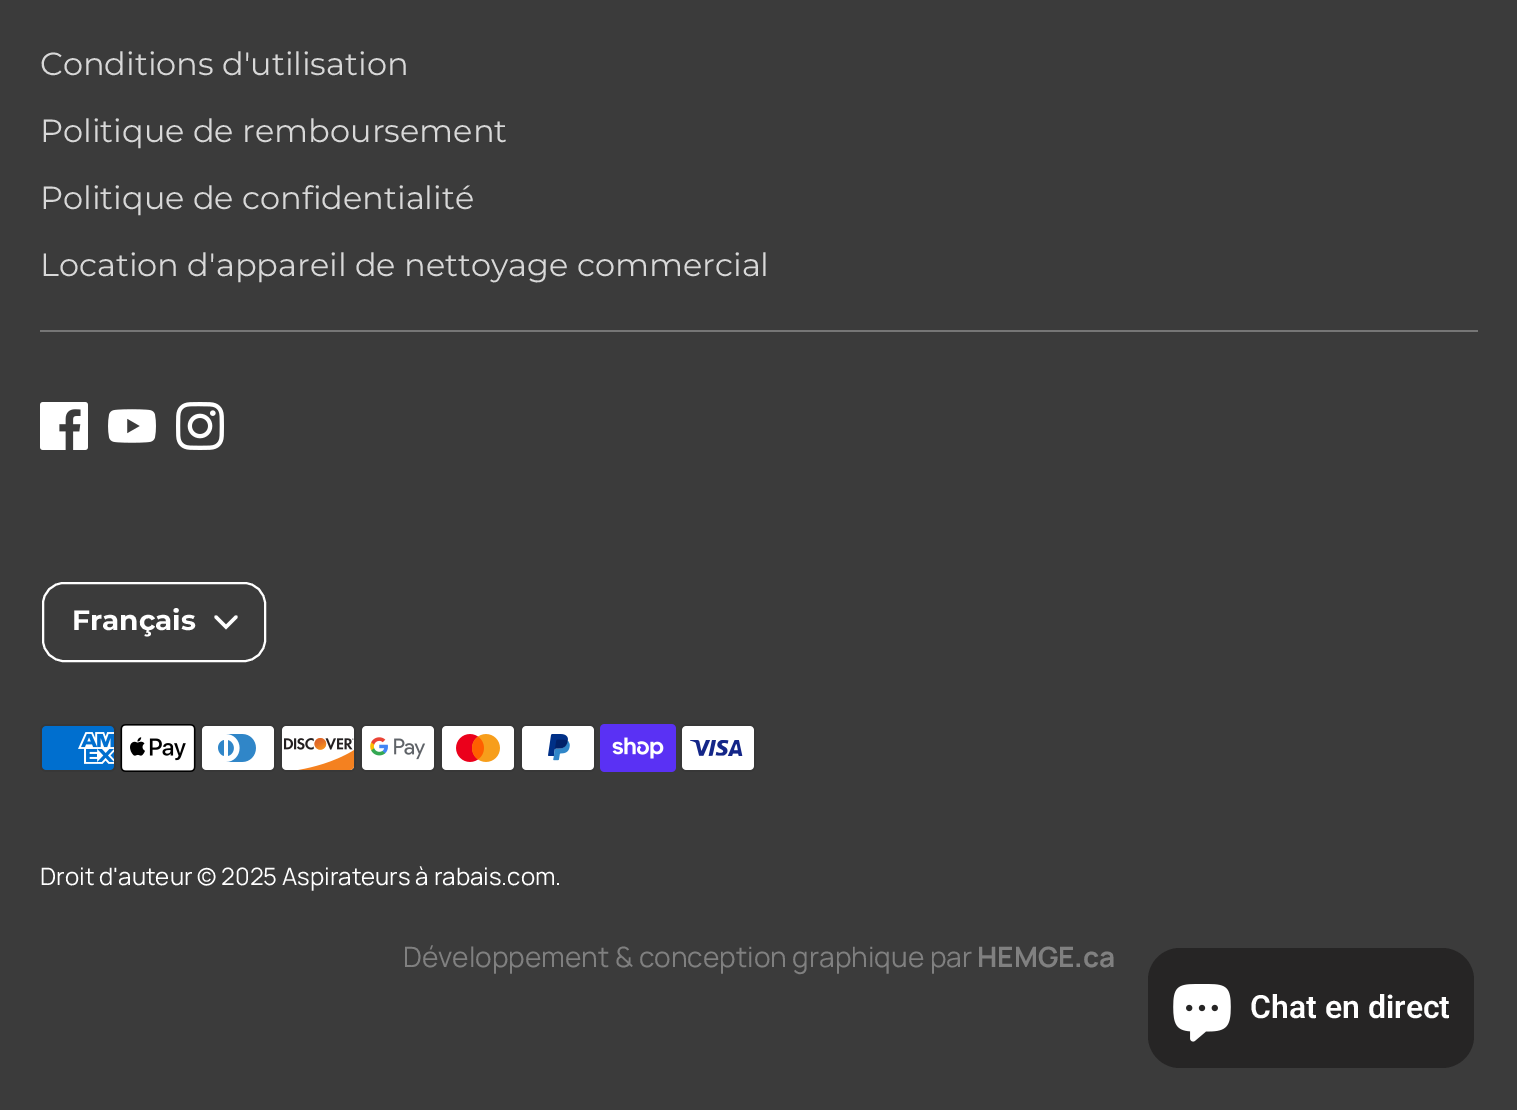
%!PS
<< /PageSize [1517 1110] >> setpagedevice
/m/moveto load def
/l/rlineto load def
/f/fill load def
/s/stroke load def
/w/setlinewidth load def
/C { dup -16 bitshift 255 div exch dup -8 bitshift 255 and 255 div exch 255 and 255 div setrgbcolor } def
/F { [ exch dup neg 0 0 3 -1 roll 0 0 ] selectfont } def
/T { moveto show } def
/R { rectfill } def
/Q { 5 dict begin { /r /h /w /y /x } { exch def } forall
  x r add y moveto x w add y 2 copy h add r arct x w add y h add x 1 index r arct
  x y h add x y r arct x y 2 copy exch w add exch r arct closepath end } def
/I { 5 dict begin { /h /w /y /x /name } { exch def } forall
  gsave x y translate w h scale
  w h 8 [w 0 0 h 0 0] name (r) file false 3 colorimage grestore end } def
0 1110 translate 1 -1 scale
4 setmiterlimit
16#3B3B3B C
0 0 1517 1110 R
16#767676 C
40 330 1438 2 R
/Montserrat-Regular 32 F
16#D8D8D8 C
(Conditions d'utilisation) 40 75 T
(Politique de remboursement) 40 142 T
(Politique de confidentialité) 40 209 T
(Location d'appareil de nettoyage commercial) 40 276 T
(1.rgb) 40 402 48 48 I
(2.rgb) 108 409 48 34 I
(3.rgb) 176 402 48 48 I
16#FFFFFF C
2 w
43 583 222 78 21 Q s
/Montserrat-Bold 28 F
(Français) 72 630 T
3.3 w
1 setlinecap
216 617 m 10 10 l 10 -10 l s
(4.rgb) 40 724 76 48 I
(5.rgb) 120 724 76 48 I
(6.rgb) 200 724 76 48 I
(7.rgb) 280 724 76 48 I
(8.rgb) 360 724 76 48 I
(9.rgb) 440 724 76 48 I
(10.rgb) 520 724 76 48 I
(11.rgb) 600 724 76 48 I
(12.rgb) 680 724 76 48 I
/Manrope-Regular 24 F
(Droit d'auteur © 2025 Aspirateurs à rabais.com.) 40 885 T
/Manrope-Regular 28 F
16#808080 C
(Développement & conception graphique par) 403 967 T
/Manrope-Bold 28 F
(HEMGE.ca) 977 967 T
16#262525 C
1148 948 326 120 32 Q f
(13.rgb) 1173 984 58 58 I
/Roboto-SemiBold 32 F
16#FFFFFF C
(Chat en direct) 1250 1018 T
showpage
